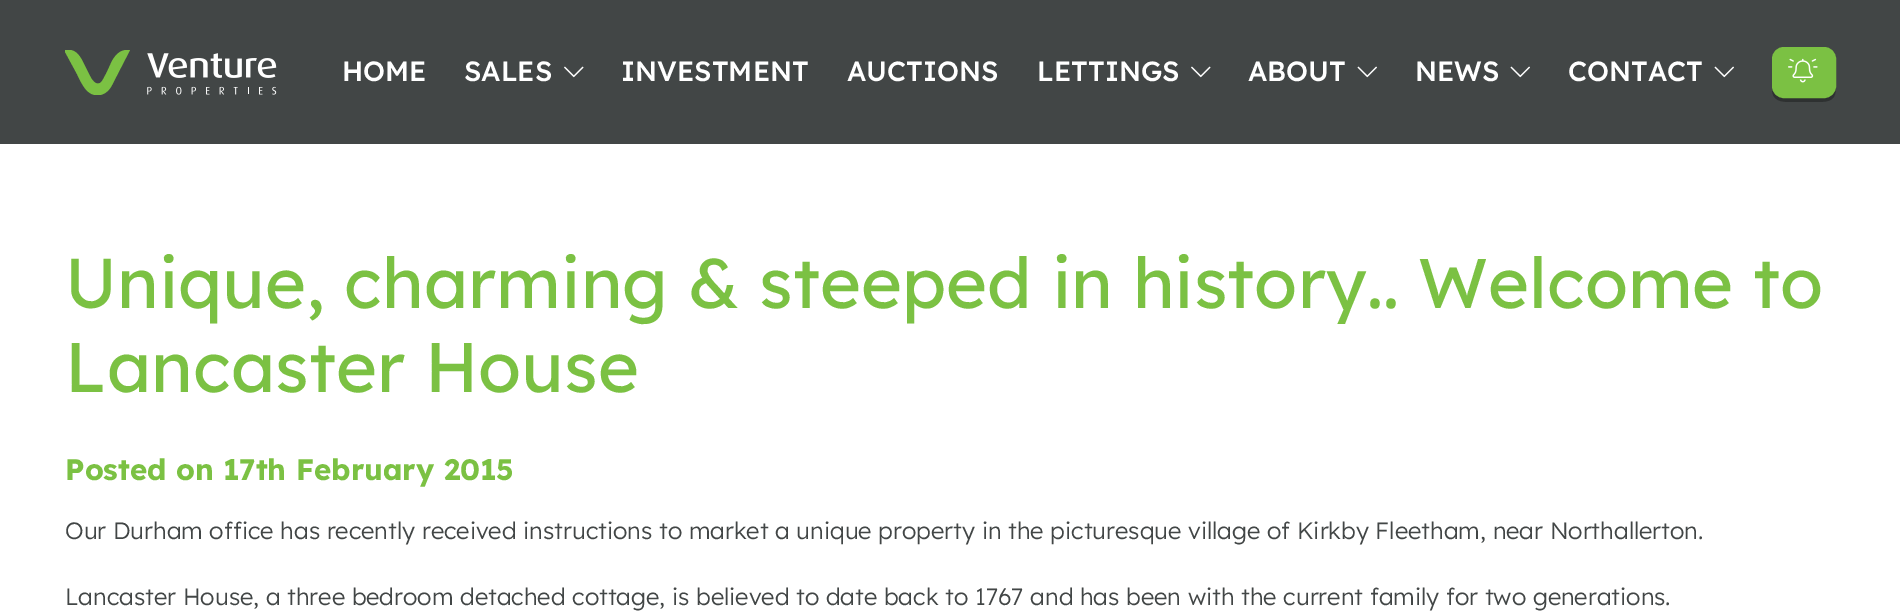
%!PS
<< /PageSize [1900 613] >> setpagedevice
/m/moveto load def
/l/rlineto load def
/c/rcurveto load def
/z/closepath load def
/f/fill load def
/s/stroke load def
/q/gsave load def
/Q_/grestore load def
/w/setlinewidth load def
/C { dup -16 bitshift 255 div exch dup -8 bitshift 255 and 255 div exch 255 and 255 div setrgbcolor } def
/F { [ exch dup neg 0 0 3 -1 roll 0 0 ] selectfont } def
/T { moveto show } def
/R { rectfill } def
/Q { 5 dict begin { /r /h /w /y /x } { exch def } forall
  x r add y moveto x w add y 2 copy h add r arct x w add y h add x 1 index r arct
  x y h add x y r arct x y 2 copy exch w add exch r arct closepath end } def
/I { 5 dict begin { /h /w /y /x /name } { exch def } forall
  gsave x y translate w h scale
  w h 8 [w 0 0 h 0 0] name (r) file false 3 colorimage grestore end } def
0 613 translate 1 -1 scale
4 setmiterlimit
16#FFFFFF C
0 0 1900 613 R
16#424646 C
0 0 1900 144 R
q
65 50 66 45 rectclip
16#7BC143 C
112 85 m -2 4 -6 9 -12 10 c -13 2 -18 -11 -23 -21 c -13 -24 l 10 -2 15 4 19 12 c 5 10 l 2 4 6 14 12 11 c 3 -2 4 -6 6 -9 c 6 -13 l 4 -7 9 -12 18 -11 c z f
Q_
(1.rgb) 147 53 130 42 I
/Lexend-Medium 27.75 F
16#FFFFFF C
(HOME) 342 81 T
(SALES) 464 81 T
(2.rgb) 564 66 20 12 I
(INVESTMENT) 621 81 T
(AUCTIONS) 847 81 T
(LETTINGS) 1037 81 T
(2.rgb) 1191 66 20 12 I
(ABOUT) 1248 81 T
(3.rgb) 1357 66 20 12 I
(NEWS) 1415 81 T
(3.rgb) 1510 66 20 12 I
(CONTACT) 1568 81 T
(3.rgb) 1714 66 20 12 I
16#2E3131 C
1772 89 m 0 12 9 13 19 13 c 26 0 l 14 0 19 -2 19 -16 c 0 6 -5 12 -12 12 c -40 0 l -6 0 -11 -4 -12 -9 c z f
16#7BC143 C
1774.5 49.5 59 46 9.5 Q q f Q_
5 w
s
(4.rgb) 1788 58 30 25 I
/Lexend-Regular 70.2 F
(Unique, charming & steeped in history.. Welcome to) 65 308 T
(Lancaster House) 65 392 T
/Lexend-Bold 29.5 F
(Posted on 17th February 2015) 65 480 T
/Lexend-Light 23.67 F
16#424646 C
(Our Durham office has recently received instructions to market a unique property in the picturesque village of Kirkby Fleetham, near Northallerton.) 65 539 T
(Lancaster House, a three bedroom detached cottage, is believed to date back to 1767 and has been with the current family for two generations.) 65 605 T
showpage
